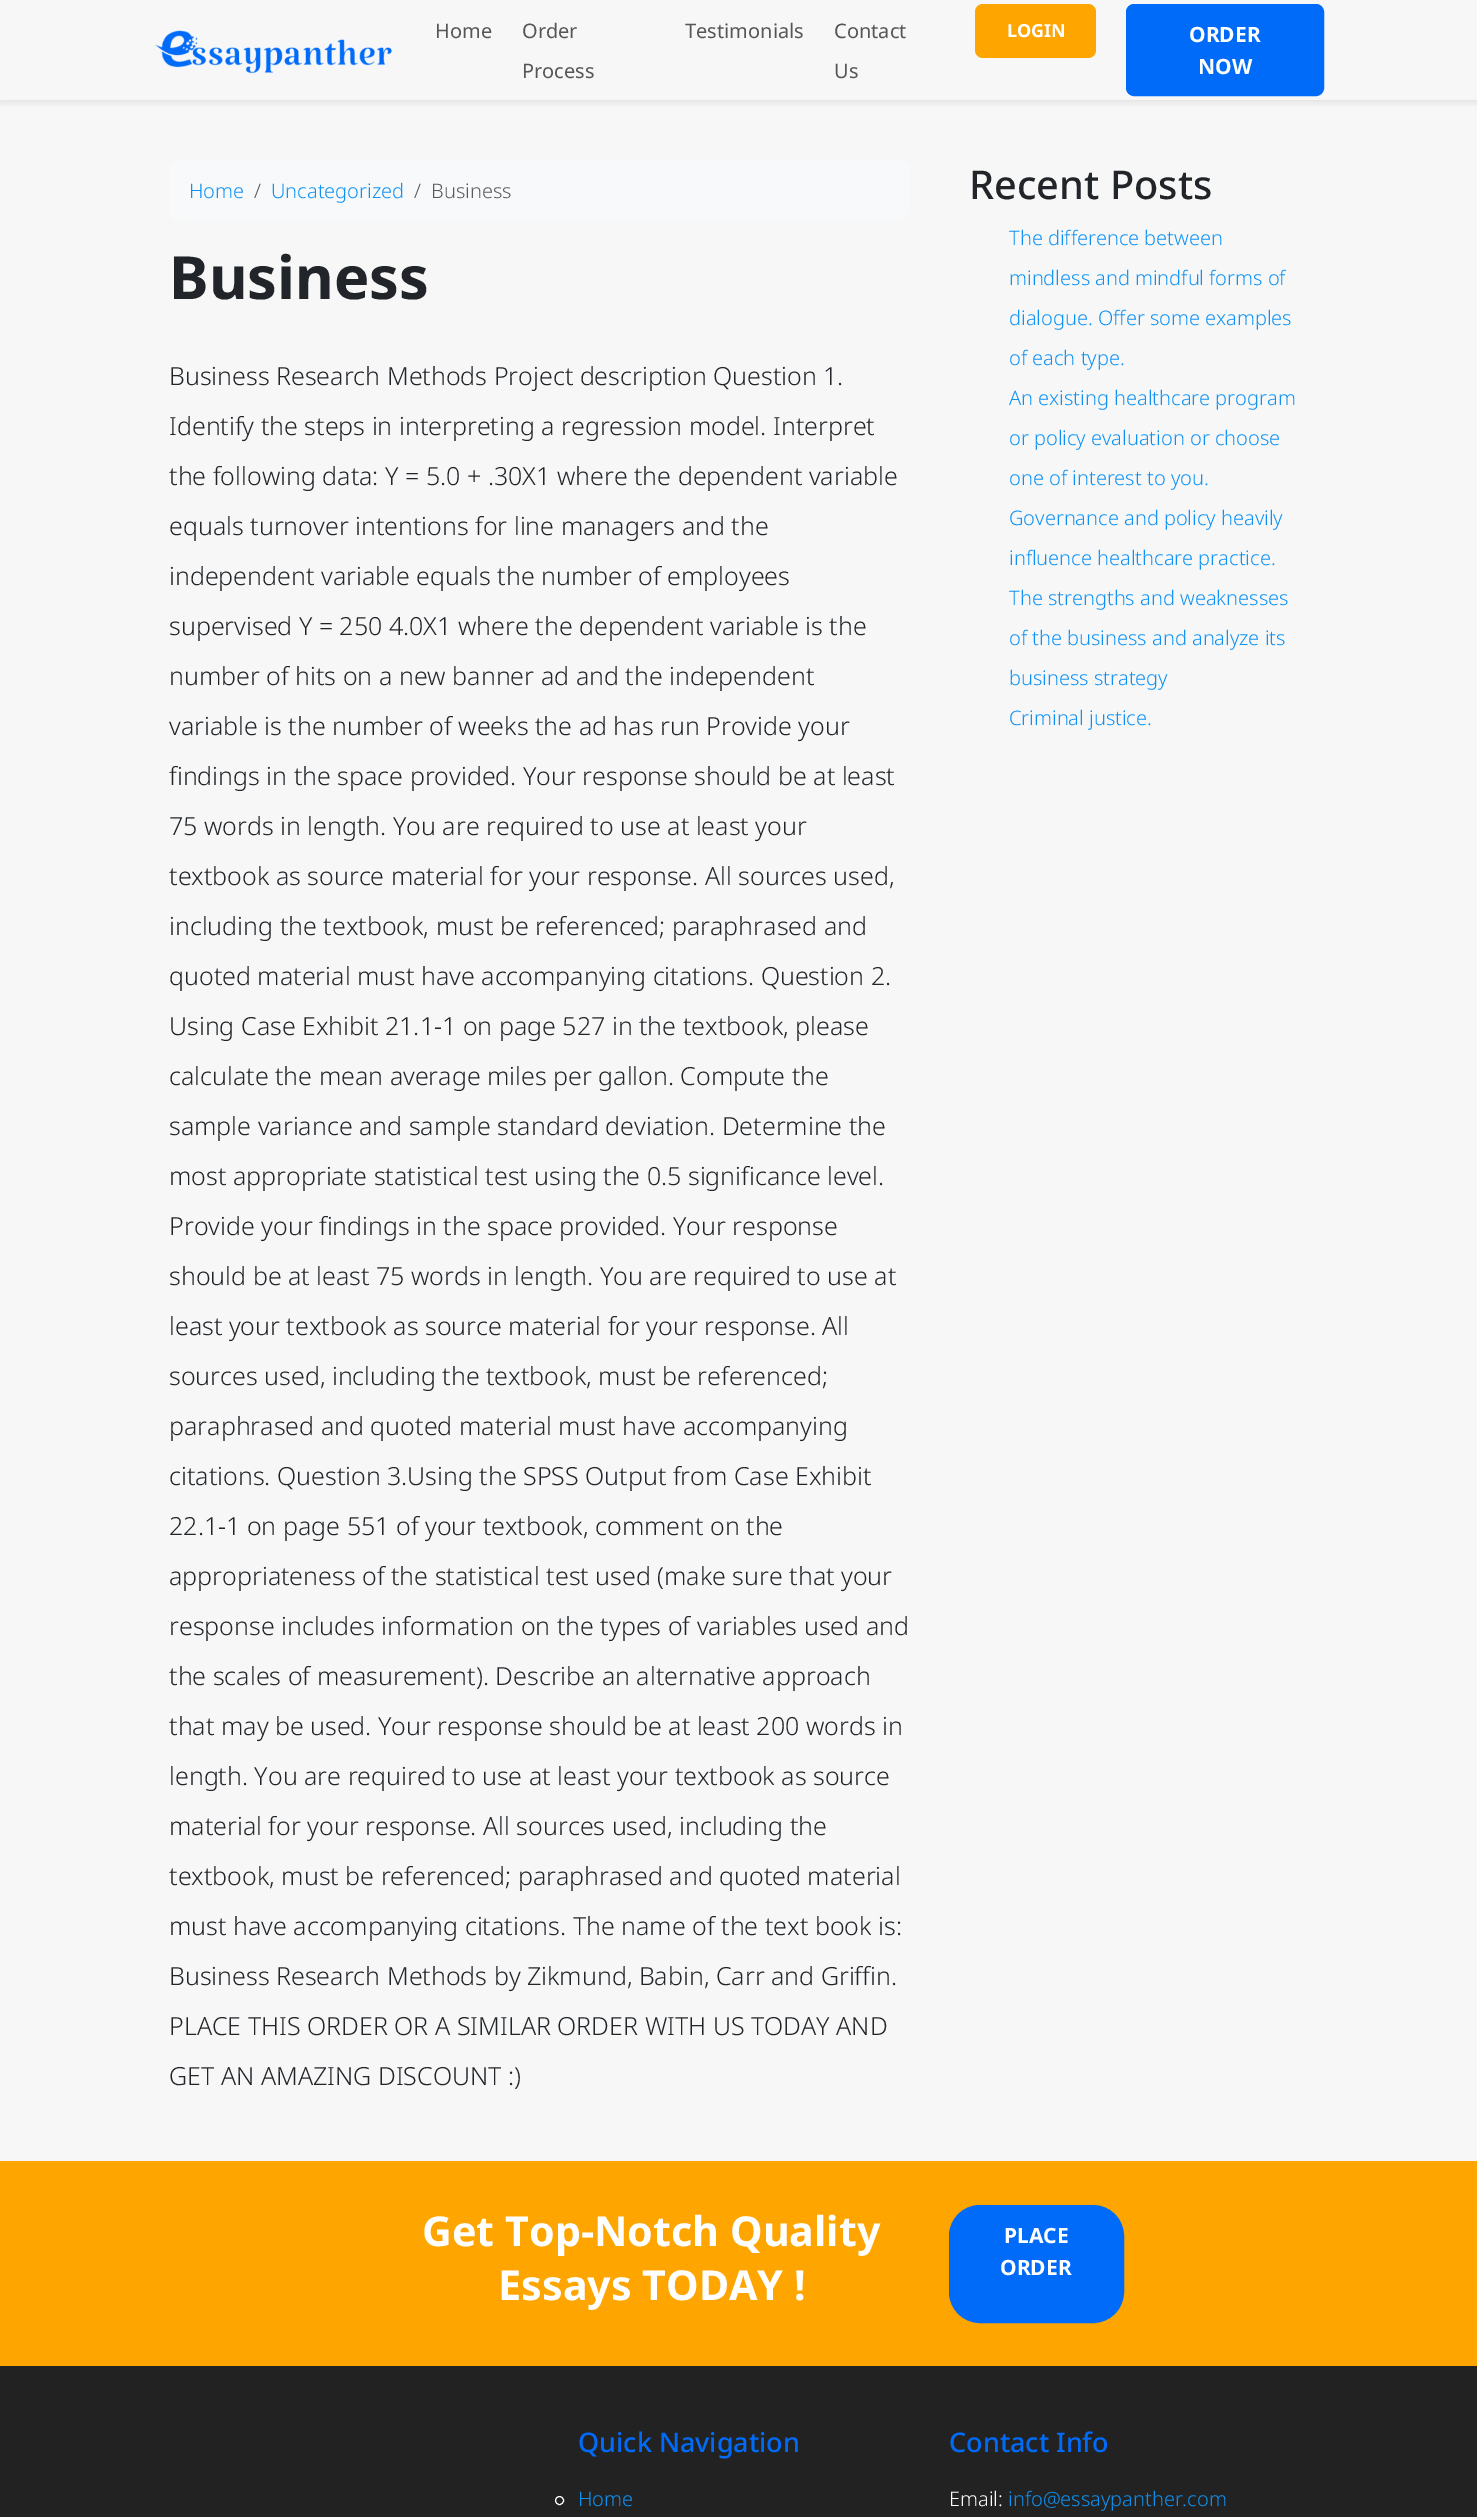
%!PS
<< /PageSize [1477 2517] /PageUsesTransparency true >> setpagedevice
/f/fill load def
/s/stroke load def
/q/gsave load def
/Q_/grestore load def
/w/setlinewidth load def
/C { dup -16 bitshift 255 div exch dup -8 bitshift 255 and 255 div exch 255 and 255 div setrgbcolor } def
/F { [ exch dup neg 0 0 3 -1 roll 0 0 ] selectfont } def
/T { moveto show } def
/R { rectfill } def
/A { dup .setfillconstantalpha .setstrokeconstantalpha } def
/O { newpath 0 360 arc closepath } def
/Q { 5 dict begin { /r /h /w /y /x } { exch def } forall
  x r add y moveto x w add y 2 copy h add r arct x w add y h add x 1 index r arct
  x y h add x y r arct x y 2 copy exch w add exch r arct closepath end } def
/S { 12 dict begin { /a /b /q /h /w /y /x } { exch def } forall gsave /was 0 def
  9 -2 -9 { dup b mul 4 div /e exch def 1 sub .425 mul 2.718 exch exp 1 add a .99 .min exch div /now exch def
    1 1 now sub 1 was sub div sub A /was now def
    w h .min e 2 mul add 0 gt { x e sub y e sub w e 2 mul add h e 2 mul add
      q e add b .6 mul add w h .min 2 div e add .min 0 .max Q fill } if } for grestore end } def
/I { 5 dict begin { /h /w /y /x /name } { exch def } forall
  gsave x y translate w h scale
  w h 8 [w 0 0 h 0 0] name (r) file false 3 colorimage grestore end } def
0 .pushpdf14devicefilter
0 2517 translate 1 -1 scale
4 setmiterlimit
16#F7F7F7 C
0 0 1477 2517 R
q
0 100 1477 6 rectclip
16#000000 C
0 0 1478 100 0 6 .13 S
Q_
(1.rgb) 155 30 237 44 I
/NotoSans-Regular 20 F
16#565656 C
(Home) 435 38 T
(Order) 522 38 T
(Process) 522 78 T
(Testimonials) 685 38 T
(Contact) 834 38 T
(Us) 834 78 T
16#FFA500 C
975 4 121 54 8 Q f
/NotoSans-Bold 18 F
16#FFFFFF C
(LOGIN) 1007 37 T
16#006BF9 C
1127.5 5.5 195 89 6.5 Q q f Q_
3 w
s
/NotoSans-Bold 21 F
16#FFFFFF C
(ORDER) 1189 42 T
(NOW) 1198 74 T
16#F8F9FA C
169 160 740 60 10 Q f
/NotoSans-Light 20 F
16#0D92F4 C
(Home) 189 198 T
16#575A5D C
(/) 254 198 T
16#0D92F4 C
(Uncategorized) 271 198 T
16#575A5D C
(/) 414 198 T
(Business) 431 198 T
/NotoSans-Bold 59.5 F
16#212529 C
(Business) 169 299 T
/NotoSans-Light 25 F
(Business Research Methods Project description Question 1.) 169 385 T
(Identify the steps in interpreting a regression model. Interpret) 169 435 T
(the following data: Y = 5.0 + .30X1 where the dependent variable) 169 485 T
(equals turnover intentions for line managers and the) 169 535 T
(independent variable equals the number of employees) 169 585 T
(supervised Y = 250 4.0X1 where the dependent variable is the) 169 635 T
(number of hits on a new banner ad and the independent) 169 685 T
(variable is the number of weeks the ad has run Provide your) 169 735 T
(findings in the space provided. Your response should be at least) 169 785 T
(75 words in length. You are required to use at least your) 169 835 T
(textbook as source material for your response. All sources used,) 169 885 T
(including the textbook, must be referenced; paraphrased and) 169 935 T
(quoted material must have accompanying citations. Question 2.) 169 985 T
(Using Case Exhibit 21.1-1 on page 527 in the textbook, please) 169 1035 T
(calculate the mean average miles per gallon. Compute the) 169 1085 T
(sample variance and sample standard deviation. Determine the) 169 1135 T
(most appropriate statistical test using the 0.5 significance level.) 169 1185 T
(Provide your findings in the space provided. Your response) 169 1235 T
(should be at least 75 words in length. You are required to use at) 169 1285 T
(least your textbook as source material for your response. All) 169 1335 T
(sources used, including the textbook, must be referenced;) 169 1385 T
(paraphrased and quoted material must have accompanying) 169 1435 T
(citations. Question 3.Using the SPSS Output from Case Exhibit) 169 1485 T
(22.1-1 on page 551 of your textbook, comment on the) 169 1535 T
(appropriateness of the statistical test used \(make sure that your) 169 1585 T
(response includes information on the types of variables used and) 169 1635 T
(the scales of measurement\). Describe an alternative approach) 169 1685 T
(that may be used. Your response should be at least 200 words in) 169 1735 T
(length. You are required to use at least your textbook as source) 169 1785 T
(material for your response. All sources used, including the) 169 1835 T
(textbook, must be referenced; paraphrased and quoted material) 169 1885 T
(must have accompanying citations. The name of the text book is:) 169 1935 T
(Business Research Methods by Zikmund, Babin, Carr and Griffin.) 169 1985 T
(PLACE THIS ORDER OR A SIMILAR ORDER WITH US TODAY AND) 169 2035 T
(GET AN AMAZING DISCOUNT :\)) 169 2085 T
/NotoSans-Medium 39.75 F
(Recent Posts) 969 199 T
/NotoSans-Light 20 F
16#0D92F4 C
(The difference between) 1009 245 T
(mindless and mindful forms of) 1009 285 T
(dialogue. Offer some examples) 1009 325 T
(of each type.) 1009 365 T
(An existing healthcare program) 1009 405 T
(or policy evaluation or choose) 1009 445 T
(one of interest to you.) 1009 485 T
(Governance and policy heavily) 1009 525 T
(influence healthcare practice.) 1009 565 T
(The strengths and weaknesses) 1009 605 T
(of the business and analyze its) 1009 645 T
(business strategy) 1009 685 T
(Criminal justice.) 1009 725 T
16#FFA500 C
0 2161 1477 205 R
/NotoSans-Bold 41.25 F
16#FFFFFF C
(Get Top-Notch Quality) 422 2246 T
(Essays TODAY !) 498 2300 T
16#006BF9 C
950.5 2206.5 172 115 29.5 Q q f Q_
s
/NotoSans-Bold 21 F
16#FFFFFF C
(PLACE) 1004 2243 T
(ORDER) 1000 2275 T
16#222222 C
0 2366 1477 151 R
/NotoSans-Medium 27 F
16#006BF9 C
(Quick Navigation) 578 2452 T
16#FFFFFF C
1 w
559.5 2500.5 4 O s
/NotoSans-Light 20 F
16#0D92F4 C
(Home) 578 2506 T
/NotoSans-Medium 27 F
16#006BF9 C
(Contact Info) 949 2452 T
/NotoSans-Light 20 F
16#FFFFFF C
(Email:) 949 2506 T
16#0D92F4 C
(info@essaypanther.com) 1008 2506 T
.poppdf14devicefilter showpage
